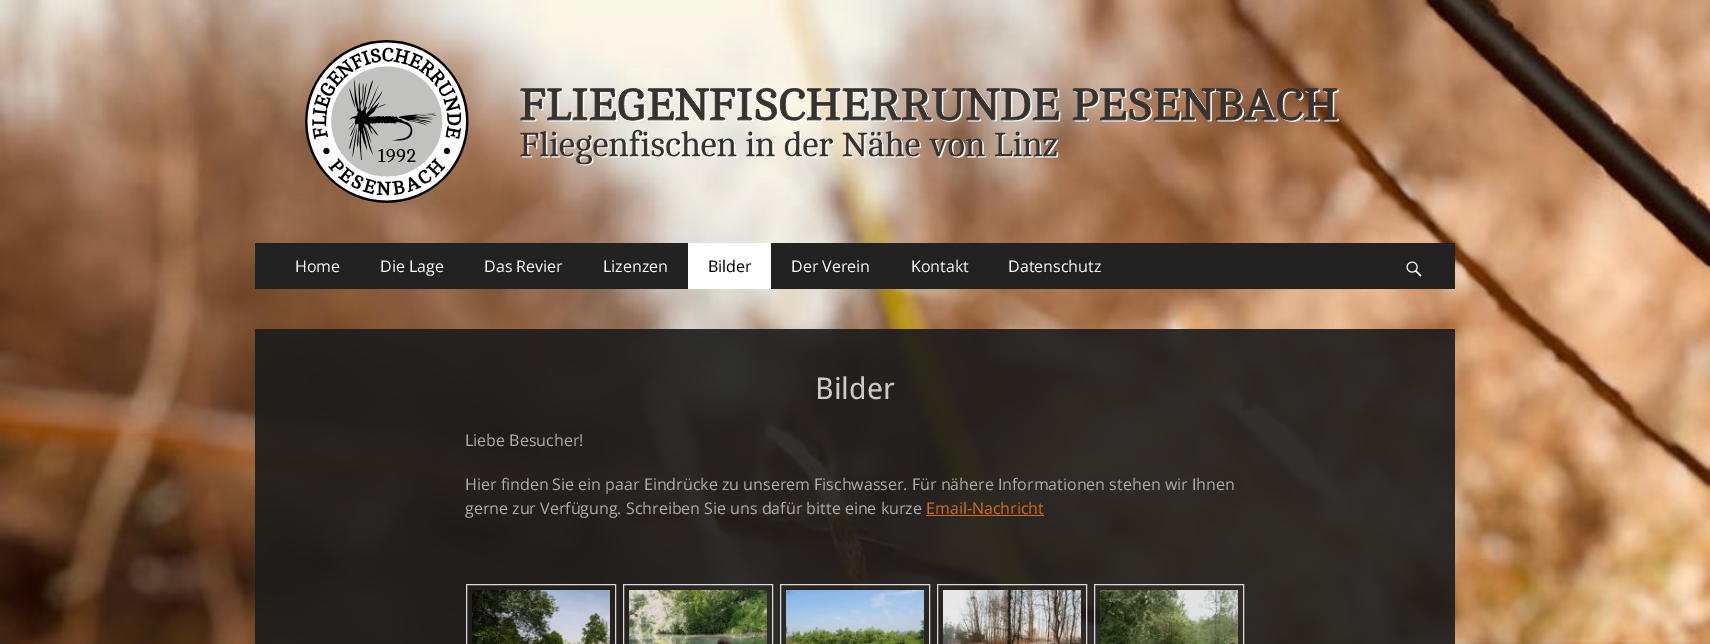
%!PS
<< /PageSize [1710 644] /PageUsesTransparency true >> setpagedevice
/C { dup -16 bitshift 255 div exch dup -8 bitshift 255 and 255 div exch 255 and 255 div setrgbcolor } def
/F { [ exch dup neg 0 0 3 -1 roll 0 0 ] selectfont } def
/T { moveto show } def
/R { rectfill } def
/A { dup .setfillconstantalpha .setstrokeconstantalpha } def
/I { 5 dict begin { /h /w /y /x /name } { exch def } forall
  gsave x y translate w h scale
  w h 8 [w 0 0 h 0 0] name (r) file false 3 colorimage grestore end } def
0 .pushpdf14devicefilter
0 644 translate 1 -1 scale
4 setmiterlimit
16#FFFFFF C
0 0 1710 644 R
(1.rgb) 0 0 1710 644 I
(2.rgb) 305 40 1034 163 I
16#222222 C
255 243 1200 46 R
/OpenSans-Regular 16 F
16#FFFFFF C
(Home) 295 272 T
(Die Lage) 380 272 T
(Das Revier) 484 272 T
(Lizenzen) 603 272 T
688 243 83 46 R
16#000000 C
(Bilder) 708 272 T
16#FFFFFF C
(Der Verein) 791 272 T
(Kontakt) 911 272 T
(Datenschutz) 1008 272 T
(3.rgb) 1406 261 16 16 I
0.9 A
16#1B1B1B C
255 329 1200 315 R
/DroidSans-Regular 30 F
1 A
16#CBCACA C
(Bilder) 815 399 T
/OpenSans-Regular 16 F
16#AEAEAE C
(Liebe Besucher!) 465 446 T
(Hier finden Sie ein paar Eindrücke zu unserem Fischwasser. Für nähere Informationen stehen wir Ihnen) 465 490 T
(gerne zur Verfügung. Schreiben Sie uns dafür bitte eine kurze) 465 514 T
16#D26C1F C
(Email-Nachricht) 926 514 T
0.9 A
16#E4741F C
926 515 118 1 R
16#EEEEEE C
466.5 584.5 149 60 rectstroke
1 A
(4.rgb) 472 590 138 54 I
0.9 A
623.5 584.5 149 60 rectstroke
1 A
(5.rgb) 629 590 138 54 I
0.9 A
780.5 584.5 149 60 rectstroke
1 A
(6.rgb) 786 590 138 54 I
0.9 A
937.5 584.5 149 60 rectstroke
1 A
(7.rgb) 943 590 138 54 I
0.9 A
1094.5 584.5 149 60 rectstroke
1 A
(8.rgb) 1100 590 138 54 I
.poppdf14devicefilter showpage
